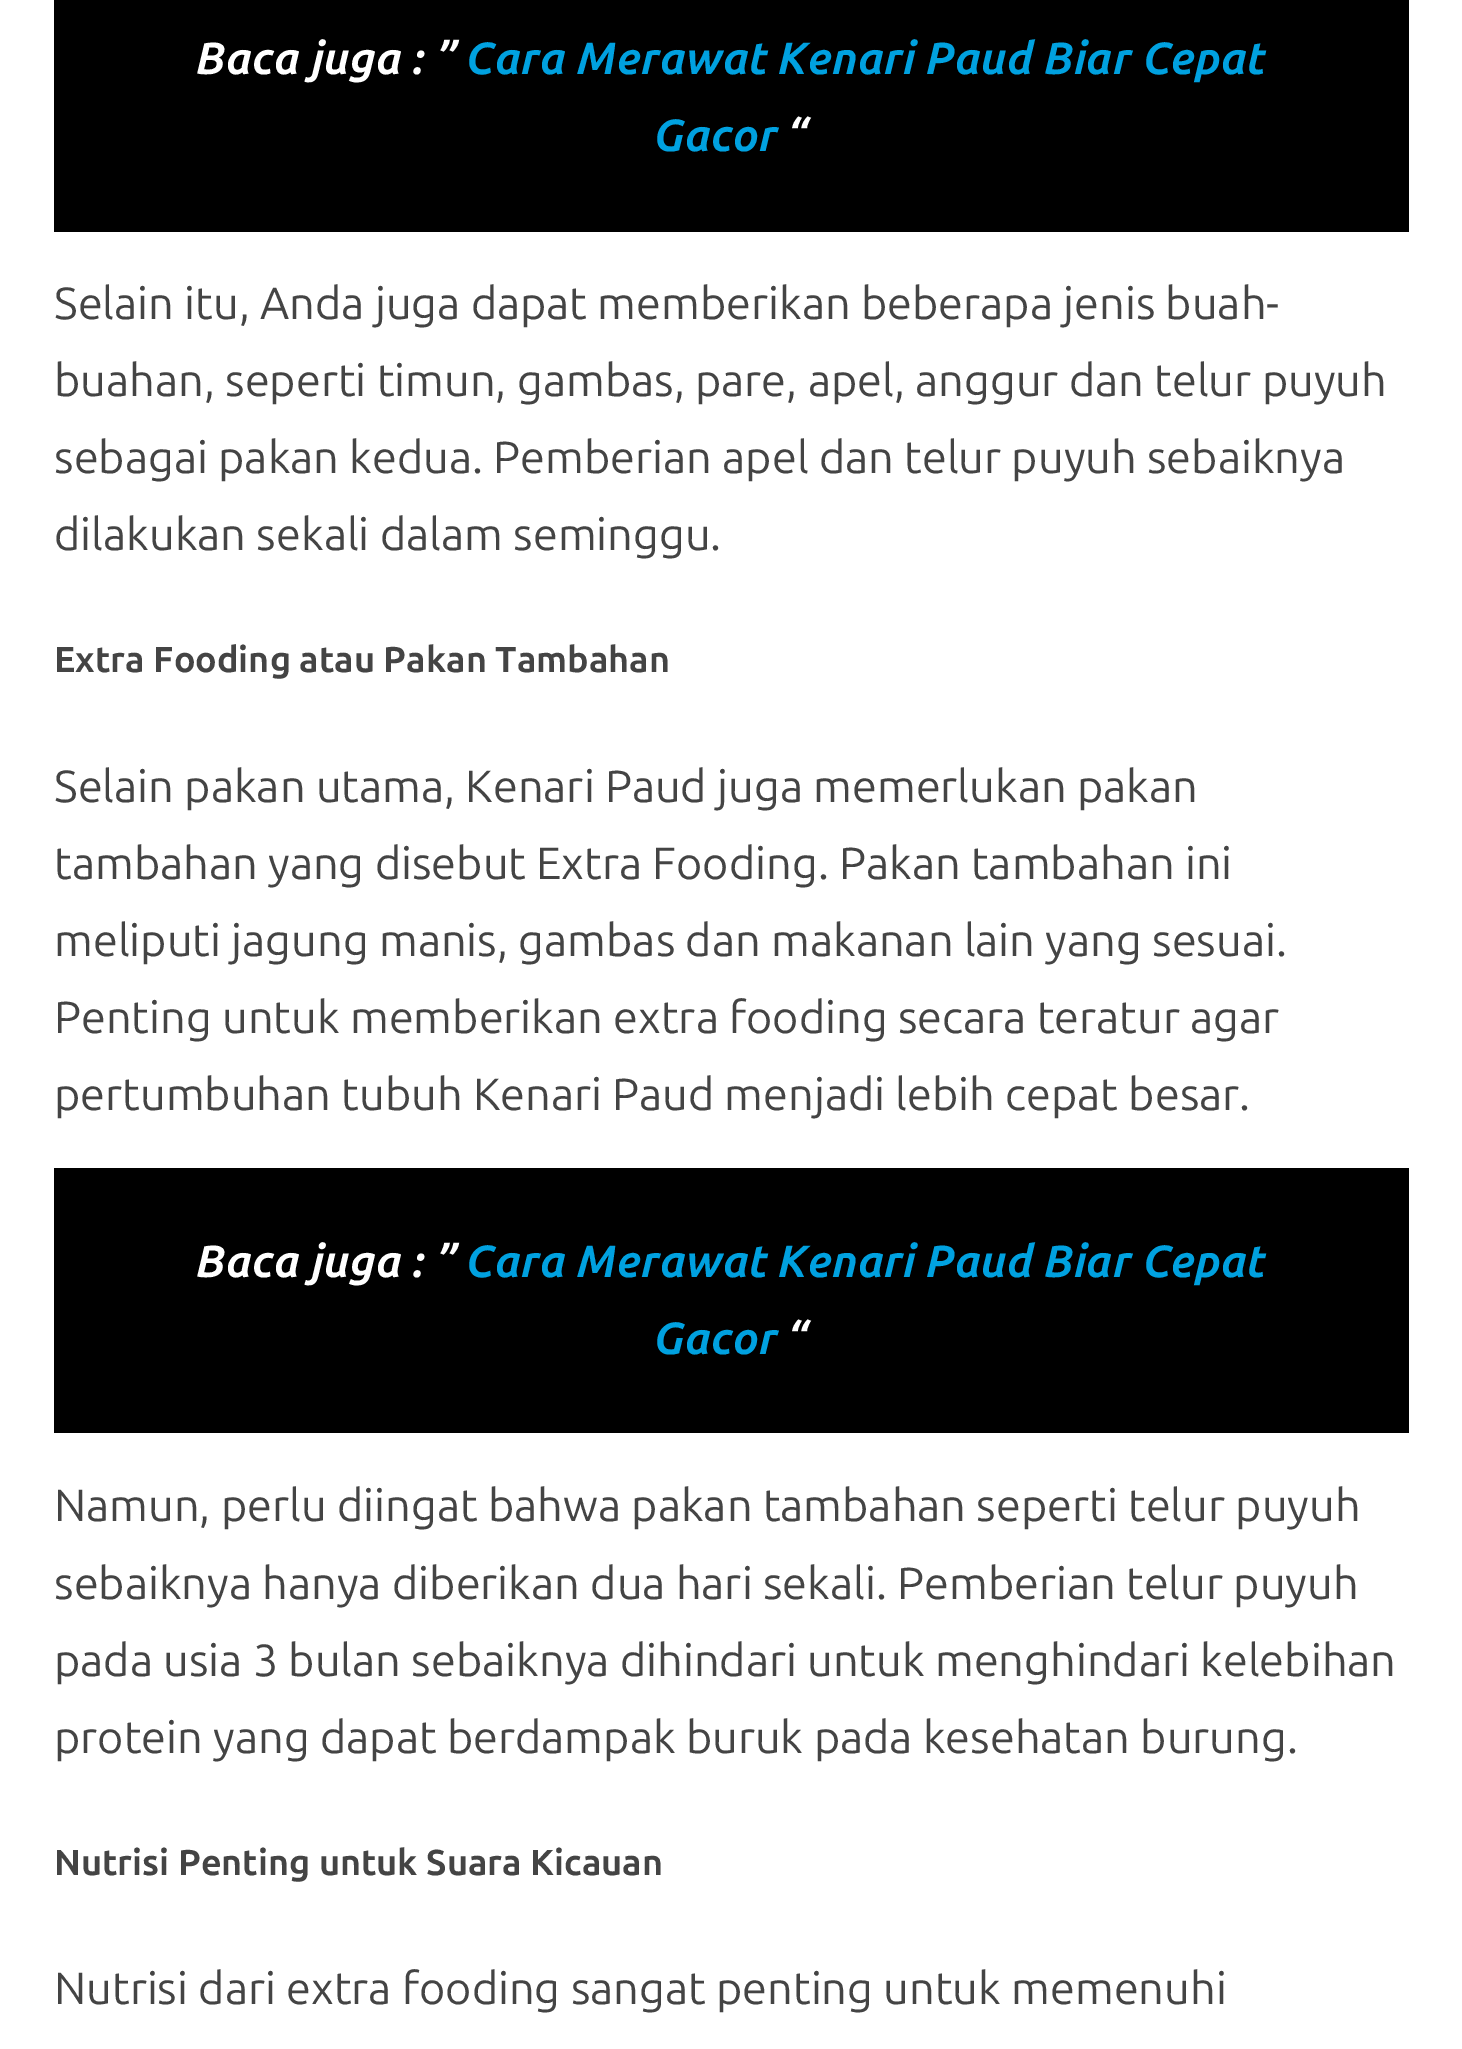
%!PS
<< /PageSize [1462 2049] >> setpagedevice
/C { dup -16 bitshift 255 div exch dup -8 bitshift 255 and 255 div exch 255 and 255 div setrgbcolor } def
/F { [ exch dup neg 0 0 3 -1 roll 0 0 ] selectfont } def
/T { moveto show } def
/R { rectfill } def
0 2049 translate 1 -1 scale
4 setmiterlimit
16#FFFFFF C
0 0 1462 2049 R
16#000000 C
54 0 1355 232 R
/Ubuntu-BoldItalic 45 F
16#FFFFFF C
(Baca juga : ”) 196 74 T
16#00A1E0 C
(Cara Merawat Kenari Paud Biar Cepat) 466 74 T
(Gacor) 654 151 T
16#FFFFFF C
(“) 788 151 T
/Ubuntu-Regular 45 F
16#444444 C
(Selain itu, Anda juga dapat memberikan beberapa jenis buah-) 54 319 T
(buahan, seperti timun, gambas, pare, apel, anggur dan telur puyuh) 54 396 T
(sebagai pakan kedua. Pemberian apel dan telur puyuh sebaiknya) 54 473 T
(dilakukan sekali dalam seminggu.) 54 550 T
/Ubuntu-Bold 36 F
(Extra Fooding atau Pakan Tambahan) 54 672 T
/Ubuntu-Regular 45 F
(Selain pakan utama, Kenari Paud juga memerlukan pakan) 54 802 T
(tambahan yang disebut Extra Fooding. Pakan tambahan ini) 54 879 T
(meliputi jagung manis, gambas dan makanan lain yang sesuai.) 54 956 T
(Penting untuk memberikan extra fooding secara teratur agar) 54 1033 T
(pertumbuhan tubuh Kenari Paud menjadi lebih cepat besar.) 54 1110 T
16#000000 C
54 1168 1355 265 R
/Ubuntu-BoldItalic 45 F
16#FFFFFF C
(Baca juga : ”) 196 1277 T
16#00A1E0 C
(Cara Merawat Kenari Paud Biar Cepat) 466 1277 T
(Gacor) 654 1354 T
16#FFFFFF C
(“) 788 1354 T
/Ubuntu-Regular 45 F
16#444444 C
(Namun, perlu diingat bahwa pakan tambahan seperti telur puyuh) 54 1521 T
(sebaiknya hanya diberikan dua hari sekali. Pemberian telur puyuh) 54 1599 T
(pada usia 3 bulan sebaiknya dihindari untuk menghindari kelebihan) 54 1676 T
(protein yang dapat berdampak buruk pada kesehatan burung.) 54 1753 T
/Ubuntu-Bold 36 F
(Nutrisi Penting untuk Suara Kicauan) 54 1875 T
/Ubuntu-Regular 45 F
(Nutrisi dari extra fooding sangat penting untuk memenuhi) 54 2004 T
showpage
